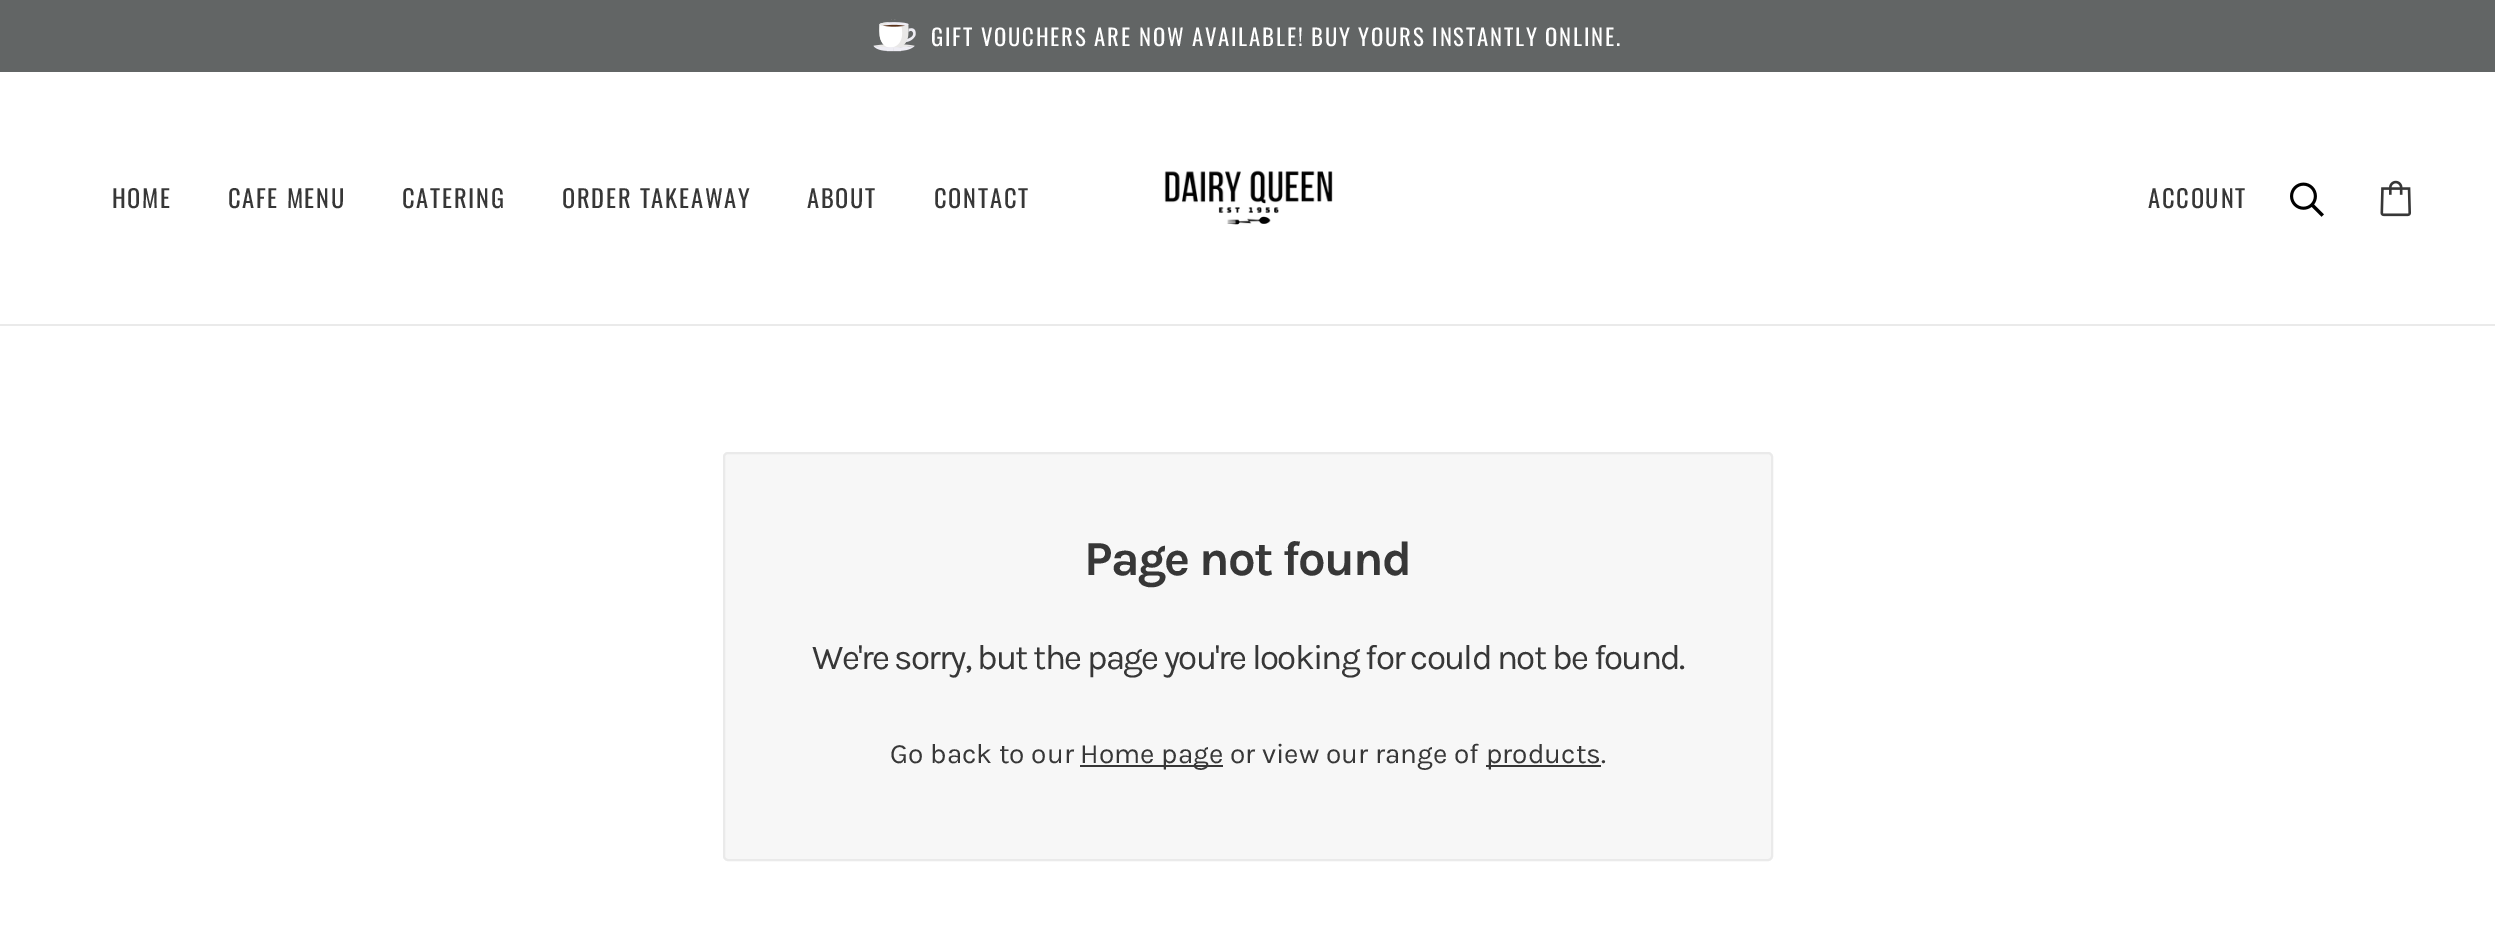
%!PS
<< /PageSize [2495 935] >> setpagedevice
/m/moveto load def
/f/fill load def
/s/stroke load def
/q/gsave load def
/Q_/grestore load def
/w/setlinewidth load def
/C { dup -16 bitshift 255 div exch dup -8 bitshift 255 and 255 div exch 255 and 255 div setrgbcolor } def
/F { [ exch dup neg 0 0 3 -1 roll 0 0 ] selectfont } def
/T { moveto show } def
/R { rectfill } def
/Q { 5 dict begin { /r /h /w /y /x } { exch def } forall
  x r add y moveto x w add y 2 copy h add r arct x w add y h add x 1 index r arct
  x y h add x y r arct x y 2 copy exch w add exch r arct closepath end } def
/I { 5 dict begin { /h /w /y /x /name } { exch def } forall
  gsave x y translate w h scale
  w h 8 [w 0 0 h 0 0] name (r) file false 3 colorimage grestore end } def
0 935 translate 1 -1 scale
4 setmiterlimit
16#FFFFFF C
0 0 2495 935 R
16#626565 C
0 0 2495 72 R
(1.rgb) 873 19 43 33 I
/Oswald-Regular 22.75 F
16#FFFFFF C
931 46 m 1.75 0 (GIFT VOUCHERS ARE NOW AVAILABLE! BUY YOURS INSTANTLY ONLINE.) ashow
16#EAEAEA C
0 324 2495 2 R
/Oswald-Regular 24.5 F
16#373737 C
112 208 m 1.75 0 (HOME) ashow
228 208 m 1.75 0 (CAFE MENU) ashow
402 208 m 1.75 0 (CATERING) ashow
562 208 m 1.75 0 (ORDER TAKEAWAY) ashow
807 208 m 1.75 0 (ABOUT) ashow
934 208 m 1.75 0 (CONTACT) ashow
(2.rgb) 1164 170 169 55 I
2148 208 m 1.75 0 (ACCOUNT) ashow
(3.rgb) 2290 182 34 35 I
(4.rgb) 2380 180 31 37 I
16#F7F7F7 C
724 453 1048 407 4 Q q f Q_
16#EAEAEA C
2 w
s
/Karla-Bold 49 F
16#373737 C
1084 575 m -1.75 0 (Page not found) ashow
/Karla-Regular 35 F
812 669 m -1.75 0 (We're sorry, but the page you're looking for could not be found.) ashow
/Karla-Regular 28 F
(Go back to our) 890 763 T
1080 765 143 2 R
(Home page or view our range of) 1080 763 T
1486 765 115 2 R
(products.) 1486 763 T
showpage
